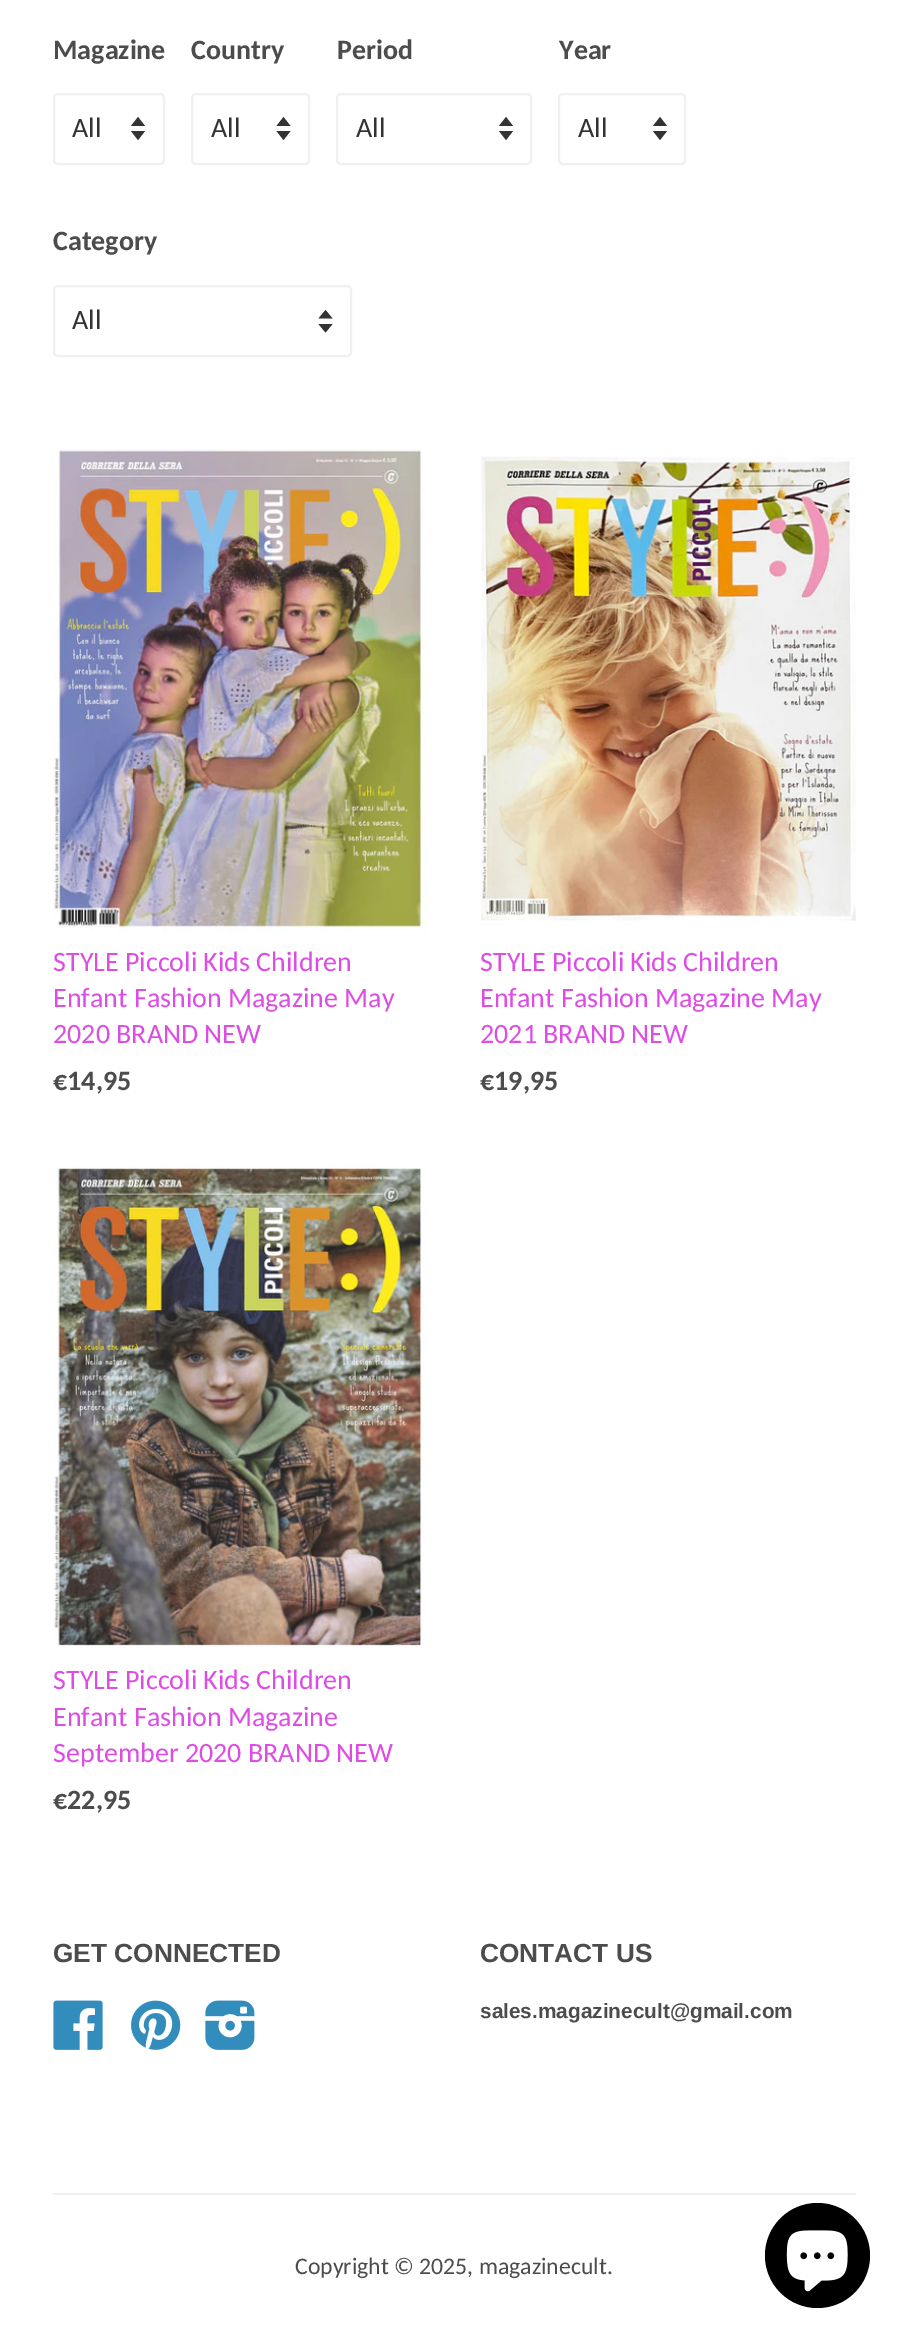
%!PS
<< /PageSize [907 2344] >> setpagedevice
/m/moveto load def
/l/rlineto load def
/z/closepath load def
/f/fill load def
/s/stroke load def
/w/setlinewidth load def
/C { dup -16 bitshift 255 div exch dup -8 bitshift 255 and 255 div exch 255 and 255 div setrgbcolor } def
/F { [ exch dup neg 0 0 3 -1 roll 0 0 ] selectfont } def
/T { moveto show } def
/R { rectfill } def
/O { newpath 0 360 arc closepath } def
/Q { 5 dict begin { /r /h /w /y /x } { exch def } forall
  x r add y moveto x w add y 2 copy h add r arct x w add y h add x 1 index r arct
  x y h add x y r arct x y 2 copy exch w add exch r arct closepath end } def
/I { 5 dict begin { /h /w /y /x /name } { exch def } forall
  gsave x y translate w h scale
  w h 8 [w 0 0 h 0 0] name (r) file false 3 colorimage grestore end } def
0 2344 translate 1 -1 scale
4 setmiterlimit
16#FFFFFF C
0 0 907 2344 R
/Carlito-Bold 28 F
16#4C4C4C C
(Magazine) 53 59 T
16#333333 C
131 131 m 7 9 l 7 -9 l z 138 117 m -7 9 l 14 0 l z f
16#F0F0F0 C
2 w
54 94 110 70 4 Q s
/Carlito-Regular 28 F
16#333333 C
(All) 72 137 T
/Carlito-Bold 28 F
16#4C4C4C C
(Country) 191 59 T
16#333333 C
276.5 131 m 7 9 l 7 -9 l z 283.5 117 m -7 9 l 14 0 l z f
16#F0F0F0 C
192 94 117 70 4 Q s
/Carlito-Regular 28 F
16#333333 C
(All) 211 137 T
/Carlito-Bold 28 F
16#4C4C4C C
(Period) 337 59 T
16#333333 C
499 131 m 7 9 l 7 -9 l z 506 117 m -7 9 l 14 0 l z f
16#F0F0F0 C
337 94 194 70 4 Q s
/Carlito-Regular 28 F
16#333333 C
(All) 356 137 T
/Carlito-Bold 28 F
16#4C4C4C C
(Year) 559 59 T
16#333333 C
653 131 m 7 9 l 7 -9 l z 660 117 m -7 9 l 14 0 l z f
16#F0F0F0 C
559 94 126 70 4 Q s
/Carlito-Regular 28 F
16#333333 C
(All) 578 137 T
/Carlito-Bold 28 F
16#4C4C4C C
(Category) 53 250 T
16#333333 C
318.5 324 m 7 8.5 l 7 -8.5 l z 325.5 310 m -7 8.5 l 14 0 l z f
16#F0F0F0 C
54 286 297 70 4 Q s
/Carlito-Regular 28 F
16#333333 C
(All) 72 329 T
(1.rgb) 53 449 374 484 I
16#DD4DE4 C
(STYLE Piccoli Kids Children) 53 971 T
(Enfant Fashion Magazine May) 53 1007 T
(2020 BRAND NEW) 53 1043 T
/Carlito-Bold 28 F
16#4C4C4C C
(€14,95) 53 1090 T
(2.rgb) 481 456 375 465 I
/Carlito-Regular 28 F
16#DD4DE4 C
(STYLE Piccoli Kids Children) 480 971 T
(Enfant Fashion Magazine May) 480 1007 T
(2021 BRAND NEW) 480 1043 T
/Carlito-Bold 28 F
16#4C4C4C C
(€19,95) 480 1090 T
(3.rgb) 53 1166 374 486 I
/Carlito-Regular 28 F
16#DD4DE4 C
(STYLE Piccoli Kids Children) 53 1689 T
(Enfant Fashion Magazine) 53 1726 T
(September 2020 BRAND NEW) 53 1762 T
/Carlito-Bold 28 F
16#4C4C4C C
(€22,95) 53 1809 T
/LiberationSans-Bold 26.25 F
(GET CONNECTED) 53 1962 T
(4.rgb) 53 2000 50 50 I
(5.rgb) 131 2000 50 50 I
(6.rgb) 205 2000 50 50 I
(CONTACT US) 480 1962 T
/LiberationSans-Bold 20.8 F
(sales.magazinecult@gmail.com) 480 2018 T
16#F0F0F0 C
53 2193 803 2 R
/Carlito-Regular 23.75 F
16#4C4C4C C
(Copyright © 2025, magazinecult.) 295 2274 T
16#000000 C
817.5 2255.5 52.5 O f
(7.rgb) 786 2230 62 62 I
showpage
